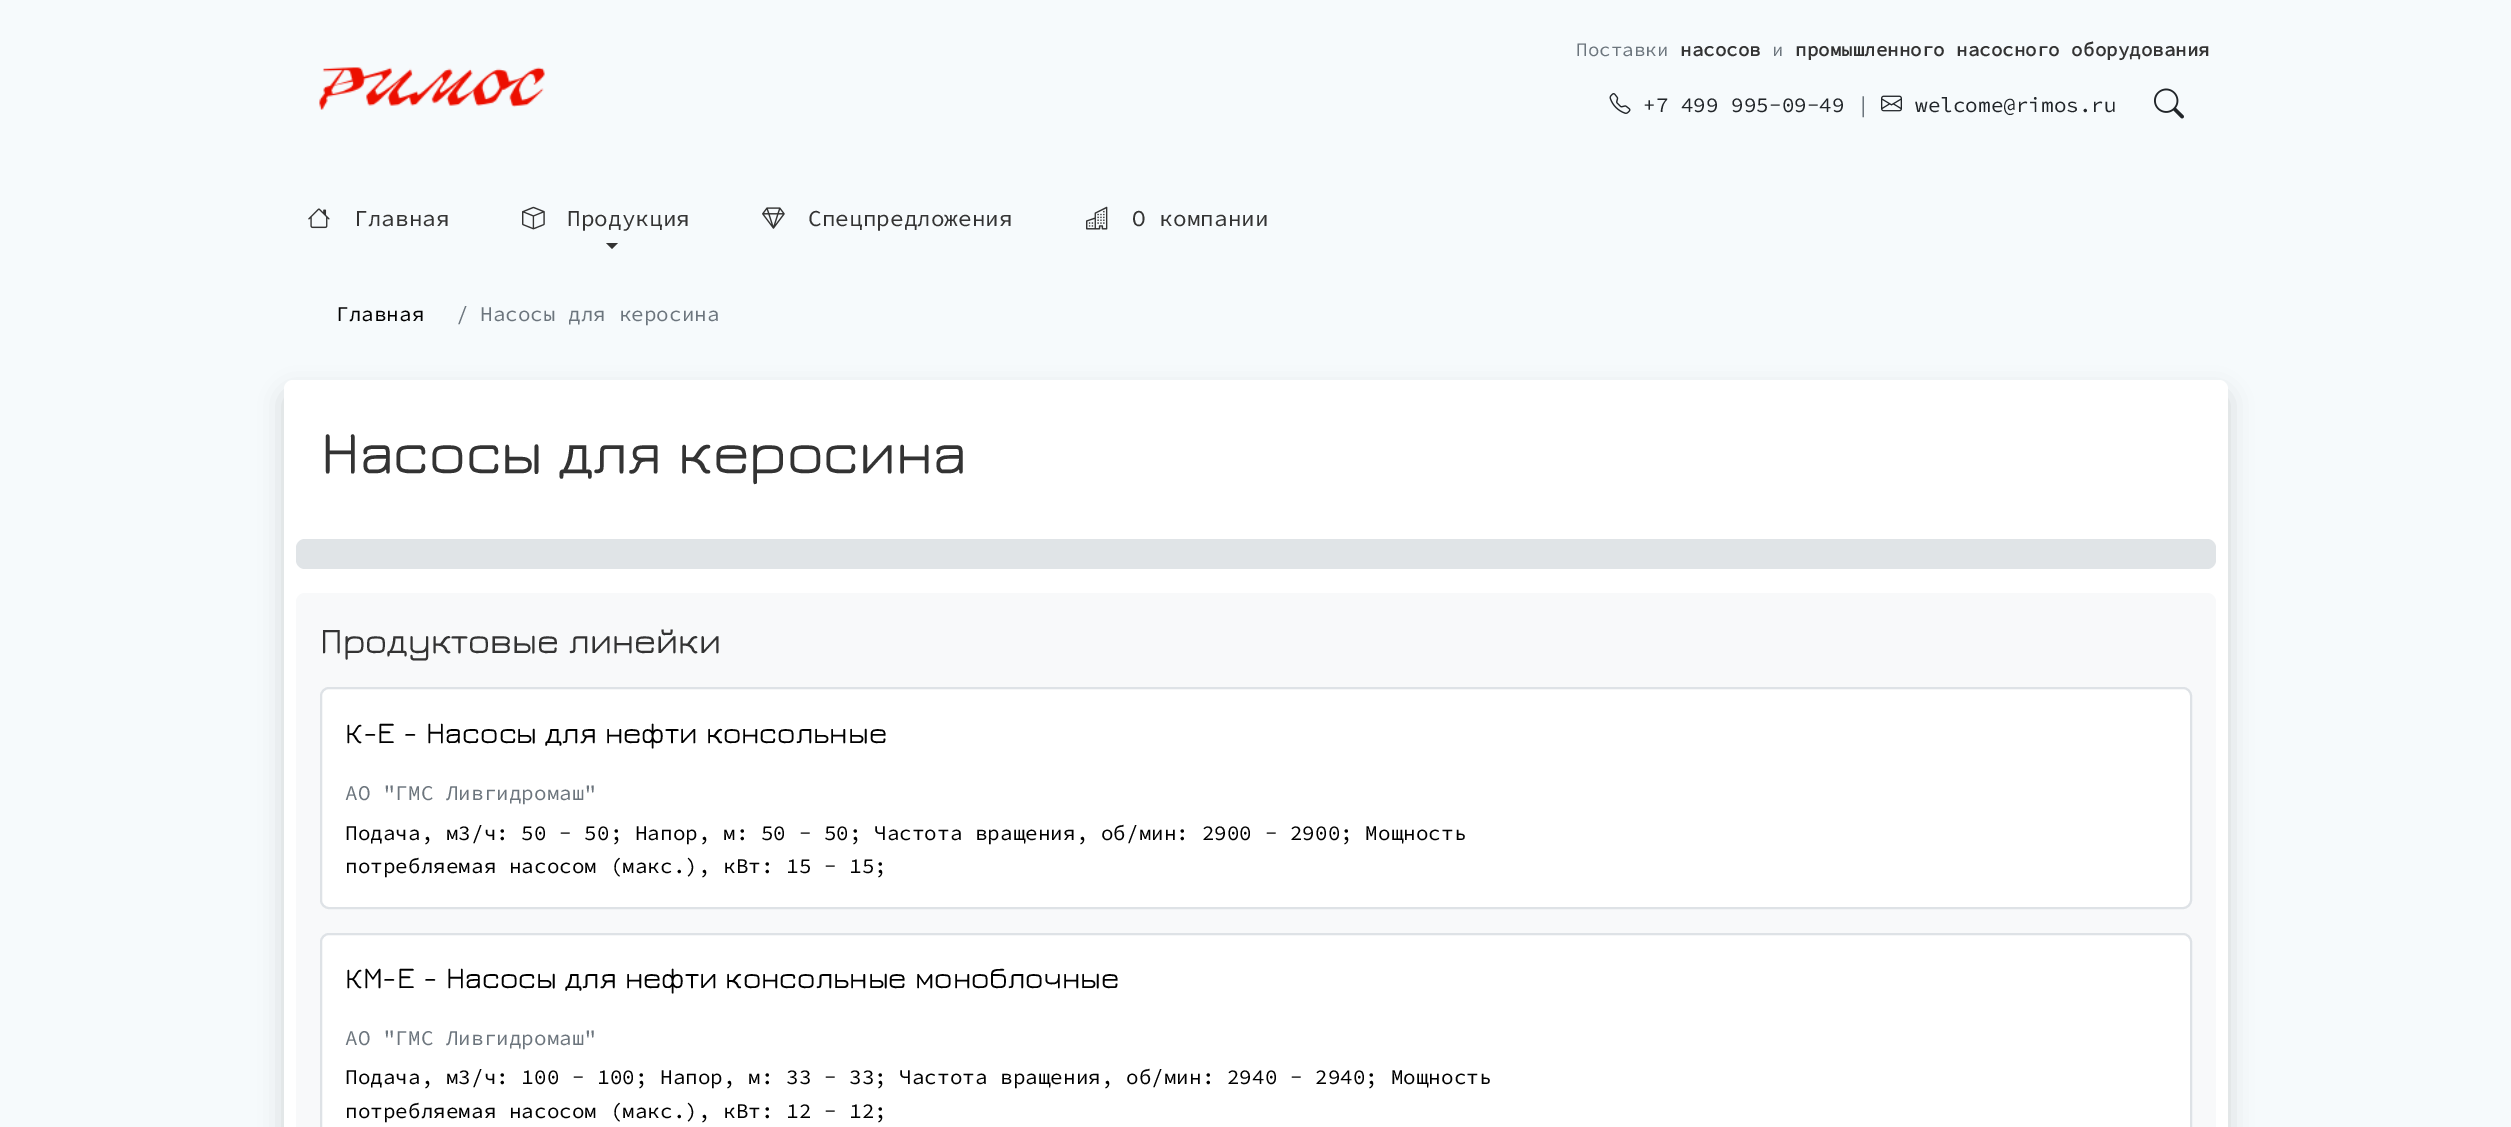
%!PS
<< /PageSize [2511 1127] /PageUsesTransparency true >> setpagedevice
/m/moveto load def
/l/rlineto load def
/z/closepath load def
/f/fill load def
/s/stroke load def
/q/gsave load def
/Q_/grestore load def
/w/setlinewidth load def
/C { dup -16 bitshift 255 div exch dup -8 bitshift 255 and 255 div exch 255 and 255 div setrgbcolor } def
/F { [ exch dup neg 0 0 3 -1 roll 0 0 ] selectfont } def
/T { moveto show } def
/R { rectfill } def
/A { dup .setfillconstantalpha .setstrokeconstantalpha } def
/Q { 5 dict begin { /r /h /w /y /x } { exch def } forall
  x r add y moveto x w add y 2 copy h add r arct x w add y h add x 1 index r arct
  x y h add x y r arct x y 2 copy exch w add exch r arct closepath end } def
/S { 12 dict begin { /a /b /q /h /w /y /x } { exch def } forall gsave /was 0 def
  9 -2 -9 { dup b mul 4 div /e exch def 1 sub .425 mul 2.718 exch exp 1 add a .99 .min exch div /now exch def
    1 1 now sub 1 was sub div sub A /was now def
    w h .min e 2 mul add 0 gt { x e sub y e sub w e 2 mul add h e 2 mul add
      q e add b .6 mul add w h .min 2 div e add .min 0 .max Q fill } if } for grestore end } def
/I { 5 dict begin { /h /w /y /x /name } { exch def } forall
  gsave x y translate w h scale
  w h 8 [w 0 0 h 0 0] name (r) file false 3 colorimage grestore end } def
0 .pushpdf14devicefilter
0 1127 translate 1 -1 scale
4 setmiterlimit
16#F6FAFC C
0 0 2511 1127 R
(1.rgb) 319 67 226 43 I
/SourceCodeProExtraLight-ExtraLight 19.2 F
16#6C757D C
(Поставки) 1576 56 T
/SourceCodeProExtraLight-Bold 19.2 F
16#333333 C
(насосов) 1680 56 T
/SourceCodeProExtraLight-ExtraLight 19.2 F
16#6C757D C
(и) 1772 56 T
/SourceCodeProExtraLight-Bold 19.2 F
16#333333 C
(промышленного насосного оборудования) 1795 56 T
(2.rgb) 1609 93 22 21 I
/SourceCodeProExtraLight-ExtraLight 21 F
16#212529 C
(+7 499 995-09-49) 1643 112 T
16#6C757D C
(|) 1857 112 T
(3.rgb) 1881 95 21 17 I
16#212529 C
(welcome@rimos.ru) 1915 112 T
(4.rgb) 2154 88 30 31 I
(5.rgb) 308 208 22 21 I
/SourceCodeProExtraLight-ExtraLight 22.75 F
16#333333 C
(Главная) 354 226 T
(6.rgb) 522 206 23 24 I
(Продукция) 567 226 T
606 243 m 12 0 l -6 6 l z f
(7.rgb) 762 207 23 22 I
(Спецпредложения) 808 226 T
(8.rgb) 1086 206 22 24 I
(О компании) 1132 226 T
/SourceCodeProExtraLight-ExtraLight 21 F
16#000000 C
(Главная) 336 321 T
16#6C757D C
(/) 456 321 T
(Насосы для керосина) 480 321 T
16#000000 C
284 392 1944 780 9 12 .15 S
16#FFFFFF C
284 380 1944 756 9 Q f
/Jura-Medium 60 F
16#333333 C
(Насосы для керосина) 321 473 T
16#E0E4E7 C
296 539 1920 30 9 Q f
16#F8F9FA C
296 593 1920 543 9 Q f
/Jura-Medium 36 F
16#333333 C
(Продуктовые линейки) 320 653 T
16#FFFFFF C
321 688 1870 220 8 Q q f Q_
16#DEE2E6 C
2 w
s
/Jura-Medium 30 F
16#000000 C
(К-Е - Насосы для нефти консольные) 345 743 T
/SourceCodeProExtraLight-ExtraLight 21 F
16#6C757D C
(АО "ГМС Ливгидромаш") 345 800 T
16#000000 C
(Подача, м3/ч: 50 - 50; Напор, м: 50 - 50; Частота вращения, об/мин: 2900 - 2900; Мощность) 345 840 T
(потребляемая насосом \(макс.\), кВт: 15 - 15;) 345 873 T
16#FFFFFF C
321 934 1870 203 8 Q q f Q_
16#DEE2E6 C
s
/Jura-Medium 30 F
16#000000 C
(КМ-Е - Насосы для нефти консольные моноблочные) 345 988 T
/SourceCodeProExtraLight-ExtraLight 21 F
16#6C757D C
(АО "ГМС Ливгидромаш") 345 1045 T
16#000000 C
(Подача, м3/ч: 100 - 100; Напор, м: 33 - 33; Частота вращения, об/мин: 2940 - 2940; Мощность) 345 1084 T
(потребляемая насосом \(макс.\), кВт: 12 - 12;) 345 1118 T
.poppdf14devicefilter showpage
